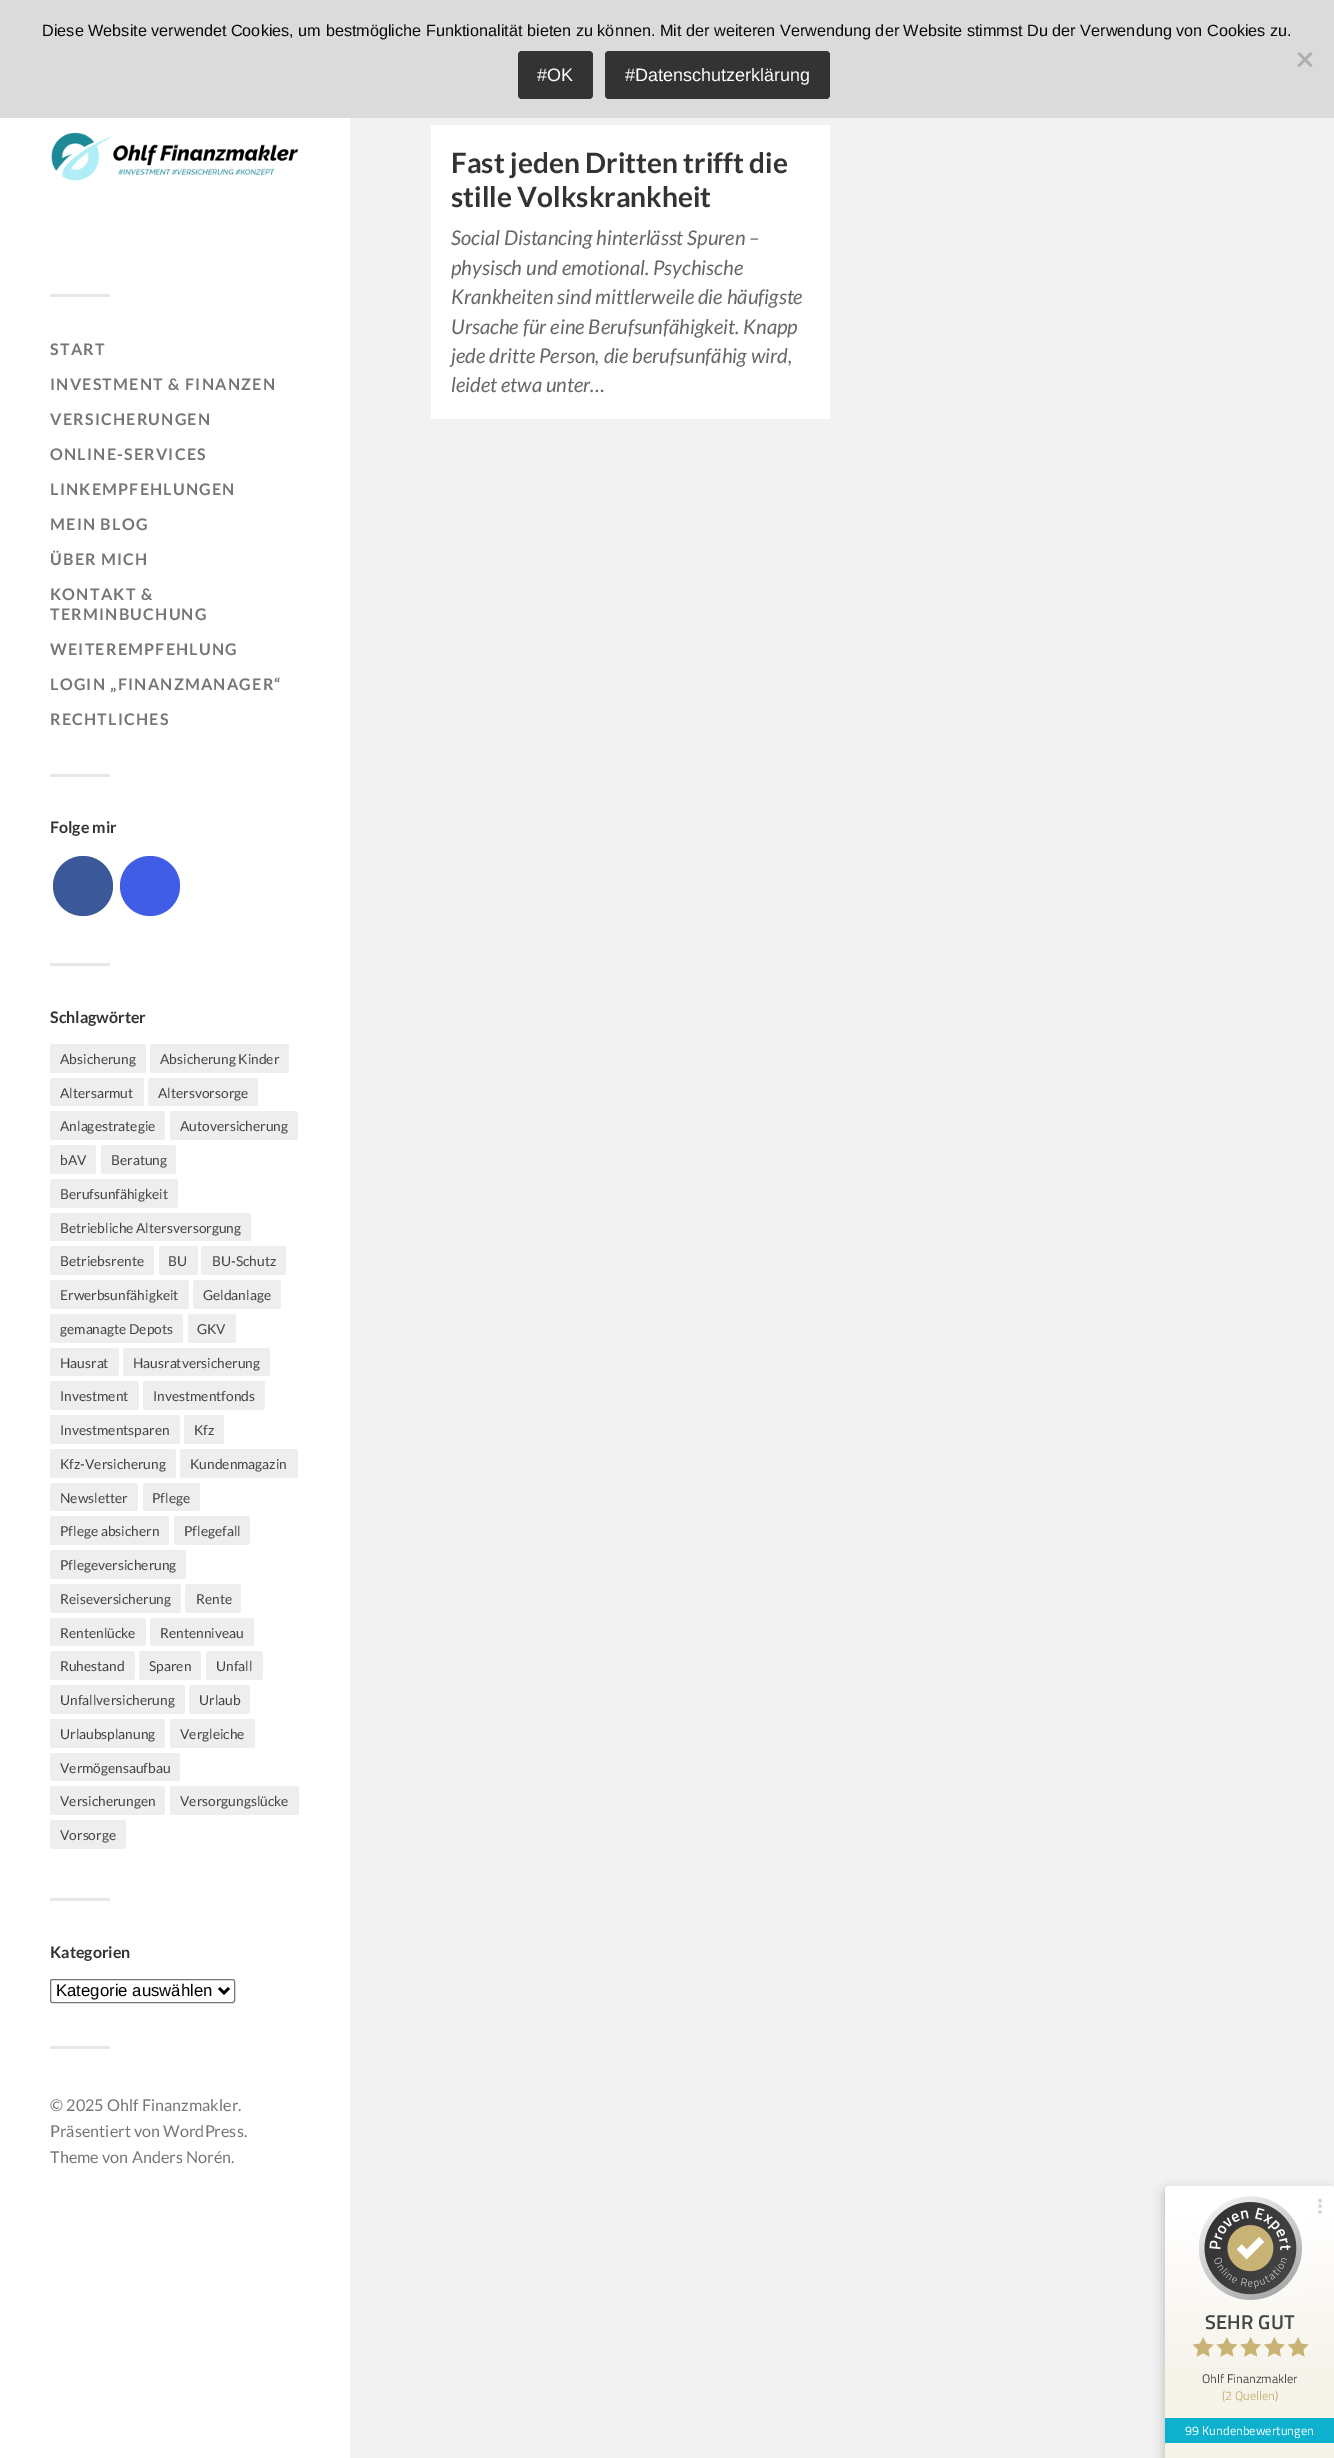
%!PS
<< /PageSize [1334 2458] /PageUsesTransparency true >> setpagedevice
/m/moveto load def
/l/rlineto load def
/z/closepath load def
/f/fill load def
/s/stroke load def
/q/gsave load def
/Q_/grestore load def
/w/setlinewidth load def
/C { dup -16 bitshift 255 div exch dup -8 bitshift 255 and 255 div exch 255 and 255 div setrgbcolor } def
/F { [ exch dup neg 0 0 3 -1 roll 0 0 ] selectfont } def
/T { moveto show } def
/R { rectfill } def
/A { dup .setfillconstantalpha .setstrokeconstantalpha } def
/O { newpath 0 360 arc closepath } def
/Q { 5 dict begin { /r /h /w /y /x } { exch def } forall
  x r add y moveto x w add y 2 copy h add r arct x w add y h add x 1 index r arct
  x y h add x y r arct x y 2 copy exch w add exch r arct closepath end } def
/S { 12 dict begin { /a /b /q /h /w /y /x } { exch def } forall gsave /was 0 def
  9 -2 -9 { dup b mul 4 div /e exch def 1 sub .425 mul 2.718 exch exp 1 add a .99 .min exch div /now exch def
    1 1 now sub 1 was sub div sub A /was now def
    w h .min e 2 mul add 0 gt { x e sub y e sub w e 2 mul add h e 2 mul add
      q e add b .6 mul add w h .min 2 div e add .min 0 .max Q fill } if } for grestore end } def
/I { 5 dict begin { /h /w /y /x /name } { exch def } forall
  gsave x y translate w h scale
  w h 8 [w 0 0 h 0 0] name (r) file false 3 colorimage grestore end } def
0 .pushpdf14devicefilter
0 2458 translate 1 -1 scale
4 setmiterlimit
16#F2F2F2 C
0 0 1334 2458 R
16#DBDBDB C
0 0 1334 118 R
/LiberationSans-Regular 16.25 F
16#0A0A0A C
(Diese Website verwendet Cookies, um bestmögliche Funktionalität bieten zu können. Mit der weiteren Verwendung der Website stimmst Du der Verwendung von Cookies zu.) 42 36 T
16#AEAEAE C
1310.5 52 m 2 2 l -13 13 l -2 -1.5 l z f
1297.5 54 m 2 -2 l 13 13.5 l -2 1.5 l z f
16#333333 C
518 51 75 48 4 Q f
/LiberationSans-Regular 18 F
16#FFFFFF C
(#OK) 537 81 T
16#333333 C
605 51 225 48 4 Q f
16#FFFFFF C
(#Datenschutzerklärung) 625 81 T
431 125 399 294 R
/Lato-Bold 28.1 F
16#333333 C
(Fast jeden Dritten trifft die) 451 173 T
(stille Volkskrankheit) 451 207 T
/Lato-Italic 20.25 F
16#666666 C
(Social Distancing hinterlässt Spuren –) 451 245 T
(physisch und emotional. Psychische) 451 275 T
(Krankheiten sind mittlerweile die häufigste) 451 304 T
(Ursache für eine Berufsunfähigkeit. Knapp) 451 334 T
(jede dritte Person, die berufsunfähig wird,) 451 363 T
(leidet etwa unter…) 451 392 T
16#FFFFFF C
0 118 350 2340 R
(1.rgb) 51 132 248 49 I
16#E7E7E7 C
50 294 60 3 R
/Lato-Bold 16 F
16#767676 C
50 355 m 1.25 0 (START) ashow
50 390 m 1.25 0 (INVESTMENT & FINANZEN) ashow
50 425 m 1.25 0 (VERSICHERUNGEN) ashow
50 460 m 1.25 0 (ONLINE-SERVICES) ashow
50 495 m 1.25 0 (LINKEMPFEHLUNGEN) ashow
50 530 m 1.25 0 (MEIN BLOG) ashow
50 565 m 1.25 0 (ÜBER MICH) ashow
50 600 m 1.25 0 (KONTAKT &) ashow
50 620 m 1.25 0 (TERMINBUCHUNG) ashow
50 655 m 1.25 0 (WEITEREMPFEHLUNG) ashow
50 690 m 1.25 0 (LOGIN „FINANZMANAGER“) ashow
50 725 m 1.25 0 (RECHTLICHES) ashow
16#E7E7E7 C
50 774 60 3 R
16#333333 C
(Folge mir) 50 833 T
16#3B5998 C
83 886 30 O f
16#405DE6 C
150 886 30 O f
16#E7E7E7 C
50 963 60 3 R
16#333333 C
(Schlagwörter) 50 1023 T
16#EEEEEE C
50 1044 96 29 2.5 Q f
/Lato-Regular 13.75 F
16#444444 C
(Absicherung) 60 1064 T
16#EEEEEE C
150 1044 139 29 2.5 Q f
16#444444 C
(Absicherung Kinder) 160 1064 T
16#EEEEEE C
50 1078 94 28 2.5 Q f
16#444444 C
(Altersarmut) 60 1098 T
16#EEEEEE C
148 1078 110 28 2.5 Q f
16#444444 C
(Altersvorsorge) 158 1098 T
16#EEEEEE C
50 1111 115 29 2.5 Q f
16#444444 C
(Anlagestrategie) 60 1131 T
16#EEEEEE C
170 1111 128 29 2.5 Q f
16#444444 C
(Autoversicherung) 180 1131 T
16#EEEEEE C
50 1145 46 29 2.5 Q f
16#444444 C
(bAV) 60 1165 T
16#EEEEEE C
101 1145 75 29 2.5 Q f
16#444444 C
(Beratung) 111 1165 T
16#EEEEEE C
50 1179 128 29 2.5 Q f
16#444444 C
(Berufsunfähigkeit) 60 1199 T
16#EEEEEE C
50 1213 201 28 2.5 Q f
16#444444 C
(Betriebliche Altersversorgung) 60 1233 T
16#EEEEEE C
50 1246 104 29 2.5 Q f
16#444444 C
(Betriebsrente) 60 1266 T
16#EEEEEE C
159 1246 39 29 2.5 Q f
16#444444 C
(BU) 168 1266 T
16#EEEEEE C
201 1246 85 29 2.5 Q f
16#444444 C
(BU-Schutz) 212 1266 T
16#EEEEEE C
50 1280 139 29 2.5 Q f
16#444444 C
(Erwerbsunfähigkeit) 60 1300 T
16#EEEEEE C
193 1280 88 29 2.5 Q f
16#444444 C
(Geldanlage) 203 1300 T
16#EEEEEE C
50 1314 133 29 2.5 Q f
16#444444 C
(gemanagte Depots) 60 1334 T
16#EEEEEE C
188 1314 48 29 2.5 Q f
16#444444 C
(GKV) 197 1334 T
16#EEEEEE C
50 1348 69 28 2.5 Q f
16#444444 C
(Hausrat) 60 1368 T
16#EEEEEE C
123 1348 147 28 2.5 Q f
16#444444 C
(Hausratversicherung) 133 1368 T
16#EEEEEE C
50 1381 89 29 2.5 Q f
16#444444 C
(Investment) 60 1401 T
16#EEEEEE C
143 1381 122 29 2.5 Q f
16#444444 C
(Investmentfonds) 153 1401 T
16#EEEEEE C
50 1415 130 29 2.5 Q f
16#444444 C
(Investmentsparen) 60 1435 T
16#EEEEEE C
184 1415 40 29 2.5 Q f
16#444444 C
(Kfz) 194 1435 T
16#EEEEEE C
50 1449 126 29 2.5 Q f
16#444444 C
(Kfz-Versicherung) 60 1469 T
16#EEEEEE C
180 1449 118 29 2.5 Q f
16#444444 C
(Kundenmagazin) 190 1469 T
16#EEEEEE C
50 1483 88 28 2.5 Q f
16#444444 C
(Newsletter) 60 1503 T
16#EEEEEE C
143 1483 57 28 2.5 Q f
16#444444 C
(Pflege) 152 1503 T
16#EEEEEE C
50 1516 119 29 2.5 Q f
16#444444 C
(Pflege absichern) 60 1536 T
16#EEEEEE C
174 1516 76 29 2.5 Q f
16#444444 C
(Pflegefall) 184 1536 T
16#EEEEEE C
50 1550 136 29 2.5 Q f
16#444444 C
(Pflegeversicherung) 60 1570 T
16#EEEEEE C
50 1584 131 29 2.5 Q f
16#444444 C
(Reiseversicherung) 60 1604 T
16#EEEEEE C
185 1584 56 29 2.5 Q f
16#444444 C
(Rente) 196 1604 T
16#EEEEEE C
50 1618 96 28 2.5 Q f
16#444444 C
(Rentenlücke) 60 1638 T
16#EEEEEE C
150 1618 104 28 2.5 Q f
16#444444 C
(Rentenniveau) 160 1638 T
16#EEEEEE C
50 1651 85 29 2.5 Q f
16#444444 C
(Ruhestand) 60 1671 T
16#EEEEEE C
139 1651 62 29 2.5 Q f
16#444444 C
(Sparen) 149 1671 T
16#EEEEEE C
206 1651 57 29 2.5 Q f
16#444444 C
(Unfall) 216 1671 T
16#EEEEEE C
50 1685 135 29 2.5 Q f
16#444444 C
(Unfallversicherung) 60 1705 T
16#EEEEEE C
189 1685 61 29 2.5 Q f
16#444444 C
(Urlaub) 199 1705 T
16#EEEEEE C
50 1719 115 29 2.5 Q f
16#444444 C
(Urlaubsplanung) 60 1739 T
16#EEEEEE C
170 1719 85 29 2.5 Q f
16#444444 C
(Vergleiche) 180 1739 T
16#EEEEEE C
50 1753 130 28 2.5 Q f
16#444444 C
(Vermögensaufbau) 60 1773 T
16#EEEEEE C
50 1786 115 29 2.5 Q f
16#444444 C
(Versicherungen) 60 1806 T
16#EEEEEE C
170 1786 129 29 2.5 Q f
16#444444 C
(Versorgungslücke) 180 1806 T
16#EEEEEE C
50 1820 76 29 2.5 Q f
16#444444 C
(Vorsorge) 60 1840 T
16#E7E7E7 C
50 1898 60 3 R
/Lato-Bold 16 F
16#333333 C
(Kategorien) 50 1958 T
16#767676 C
50.5 1979.5 184 23 2 Q s
16#000000 C
2.5 w
219 1988 m 5 5 l 5 -5 l s
/LiberationSans-Regular 16.75 F
(Kategorie auswählen) 56 1996 T
16#E7E7E7 C
50 2046 60 3 R
/Lato-Regular 16.25 F
16#767676 C
(© 2025 Ohlf Finanzmakler.) 50 2111 T
(Präsentiert von WordPress.) 50 2137 T
(Theme von Anders Norén.) 50 2163 T
16#000000 C
1165 2191 165 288 2.5 6 .25 S
q 1165 2186 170 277 5 Q clip newpath
<< /ShadingType 2 /ColorSpace /DeviceRGB /Coords [1250 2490 1250 2186] /Extend [true true] /Function << /FunctionType 3 /Domain [0 1] /Functions [<< /FunctionType 2 /Domain [0 1] /C0 [.965 .953 .918] /C1 [.965 .953 .918] /N 1 >> << /FunctionType 2 /Domain [0 1] /C0 [.965 .953 .918] /C1 [1 1 1] /N 1 >> << /FunctionType 2 /Domain [0 1] /C0 [1 1 1] /C1 [1 1 1] /N 1 >>] /Bounds [.37 .9] /Encode [0 1 0 1 0 1] >> >> shfill Q_
(2.rgb) 1199 2196 104 104 I
(3.rgb) 1317 2198 6 16 I
/TitilliumWeb-SemiBold 20 F
16#444444 C
1205 2329 m .25 0 (SEHR GUT) ashow
(4.rgb) 1193 2337 21 20 I
(5.rgb) 1216 2337 22 20 I
(6.rgb) 1240 2337 21 20 I
(7.rgb) 1264 2337 21 20 I
(4.rgb) 1288 2337 21 20 I
/TitilliumWeb-Regular 12.5 F
(Ohlf Finanzmakler) 1202 2383 T
16#C8B274 C
(\(2 Quellen\)) 1222 2400 T
16#0DB1CD C
1165 2418 169 25 R
16#FFFFFF C
1185 2435 m .1 0 (99 Kundenbewertungen) ashow
.poppdf14devicefilter showpage
